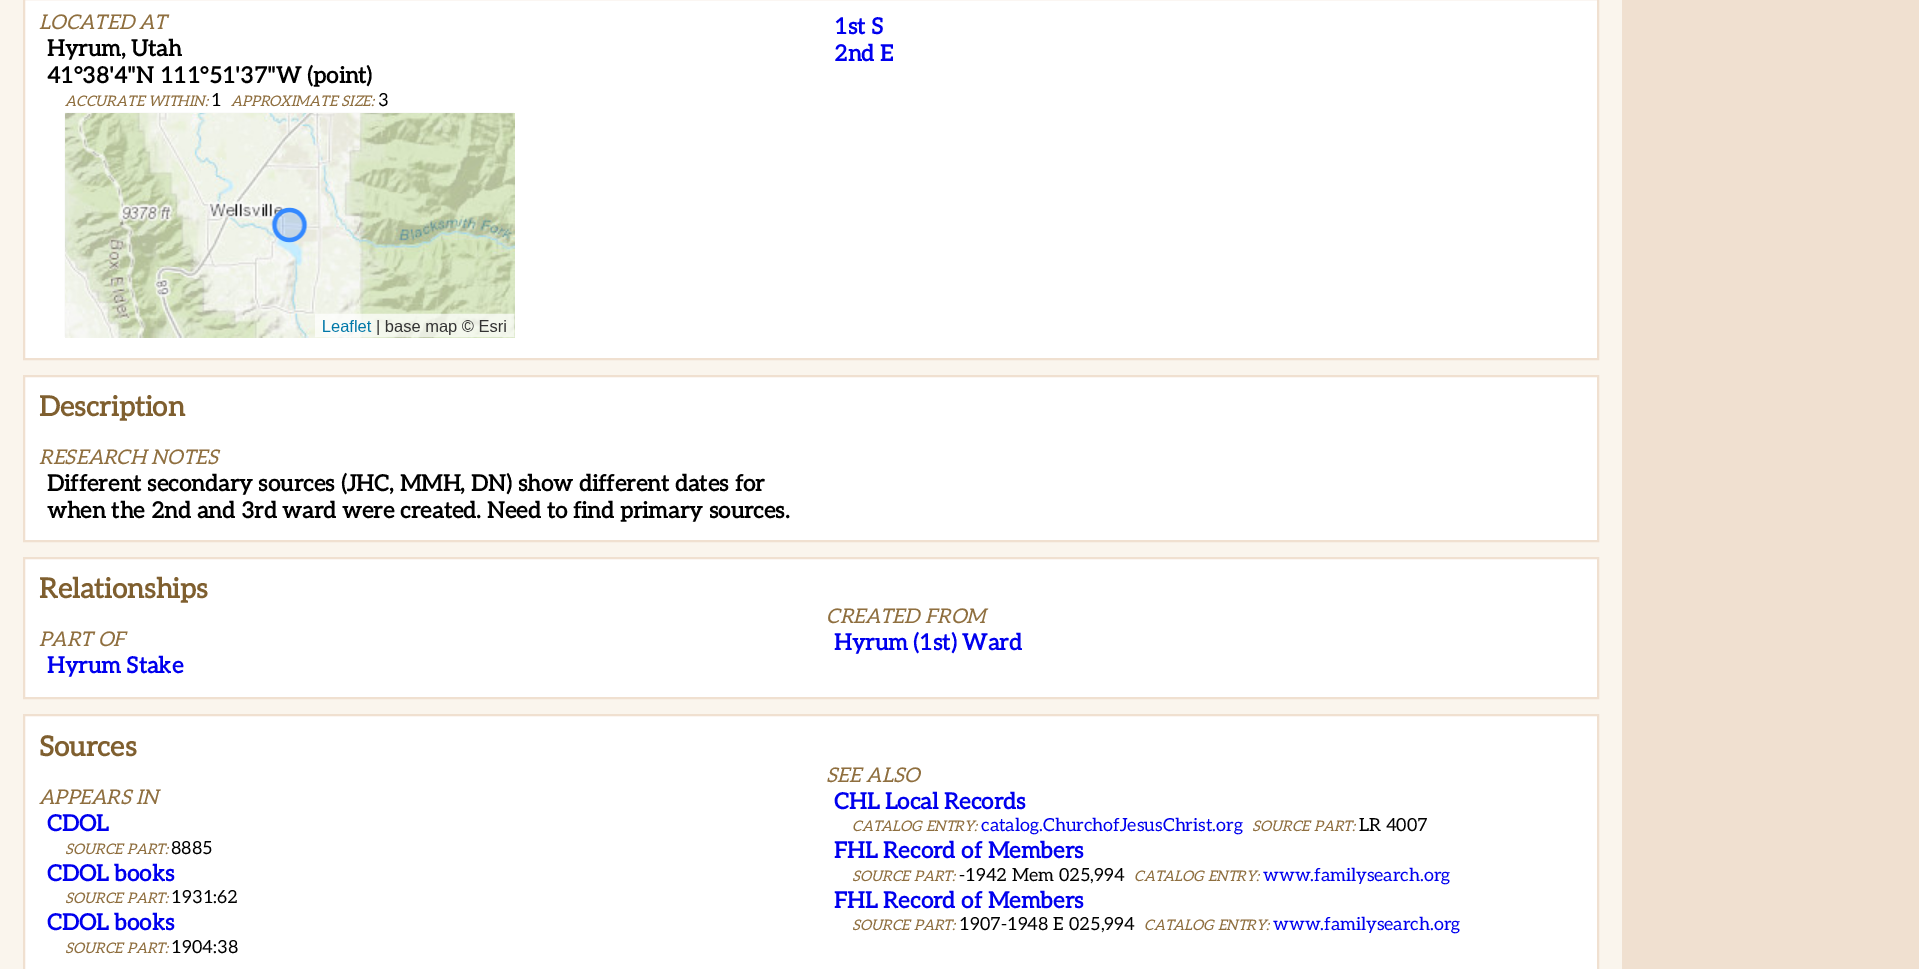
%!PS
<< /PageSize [1919 969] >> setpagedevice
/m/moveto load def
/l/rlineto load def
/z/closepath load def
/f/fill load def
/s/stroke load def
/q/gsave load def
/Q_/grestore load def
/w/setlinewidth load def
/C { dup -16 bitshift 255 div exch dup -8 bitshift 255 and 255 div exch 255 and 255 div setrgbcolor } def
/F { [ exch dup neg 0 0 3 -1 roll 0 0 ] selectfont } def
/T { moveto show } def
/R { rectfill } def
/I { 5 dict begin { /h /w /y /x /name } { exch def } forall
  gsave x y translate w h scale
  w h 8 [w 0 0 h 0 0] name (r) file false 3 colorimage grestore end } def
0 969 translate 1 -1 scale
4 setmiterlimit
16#FAF5ED C
0 0 1919 969 R
16#FFFFFF C
24 -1 m 1574 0 l 0 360 l -1574 0 l z q f Q_
16#F0E0D0 C
2 w
s
/Aleo-Italic 20.25 F
16#8F6F3F C
(LOCATED AT) 39 29 T
/Aleo-Bold 22.5 F
16#000000 C
(Hyrum, Utah) 47 56 T
(41°38'4"N 111°51'37"W \(point\)) 47 83 T
/Aleo-Italic 14.5 F
16#8F6F3F C
(ACCURATE WITHIN:) 65 106 T
/Aleo-Regular 18 F
16#000000 C
(1) 211 106 T
/Aleo-Italic 14.5 F
16#8F6F3F C
(APPROXIMATE SIZE:) 231 106 T
/Aleo-Regular 18 F
16#000000 C
(3) 378 106 T
(1.rgb) 64 112 451 226 I
/Aleo-Bold 22.5 F
16#0000EE C
(1st S) 834 34 T
(2nd E) 834 61 T
16#FFFFFF C
24 376 m 1574 0 l 0 165 l -1574 0 l z q f Q_
16#F0E0D0 C
s
/Aleo-Bold 27.75 F
16#7F5F2F C
(Description) 39 416 T
/Aleo-Italic 20.25 F
16#8F6F3F C
(RESEARCH NOTES) 39 464 T
/Aleo-Bold 22.5 F
16#000000 C
(Different secondary sources \(JHC, MMH, DN\) show different dates for) 47 491 T
(when the 2nd and 3rd ward were created. Need to find primary sources.) 47 518 T
16#FFFFFF C
24 558 m 1574 0 l 0 140 l -1574 0 l z q f Q_
16#F0E0D0 C
s
/Aleo-Bold 27.75 F
16#7F5F2F C
(Relationships) 39 598 T
/Aleo-Italic 20.25 F
16#8F6F3F C
(PART OF) 39 646 T
/Aleo-Bold 22.5 F
16#0000EE C
(Hyrum Stake) 47 673 T
/Aleo-Italic 20.25 F
16#8F6F3F C
(CREATED FROM) 826 623 T
/Aleo-Bold 22.5 F
16#0000EE C
(Hyrum \(1st\) Ward) 834 650 T
16#FFFFFF C
24 715 m 1574 0 l 0 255 l -1574 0 l z q f Q_
16#F0E0D0 C
s
/Aleo-Bold 27.75 F
16#7F5F2F C
(Sources) 39 756 T
/Aleo-Italic 20.25 F
16#8F6F3F C
(APPEARS IN) 39 804 T
/Aleo-Bold 22.5 F
16#0000EE C
(CDOL) 47 831 T
/Aleo-Italic 14.5 F
16#8F6F3F C
(SOURCE PART:) 65 854 T
/Aleo-Regular 18 F
16#000000 C
(8885) 171 854 T
/Aleo-Bold 22.5 F
16#0000EE C
(CDOL books) 47 881 T
/Aleo-Italic 14.5 F
16#8F6F3F C
(SOURCE PART:) 65 903 T
/Aleo-Regular 18 F
16#000000 C
(1931:62) 171 903 T
/Aleo-Bold 22.5 F
16#0000EE C
(CDOL books) 47 930 T
/Aleo-Italic 14.5 F
16#8F6F3F C
(SOURCE PART:) 65 953 T
/Aleo-Regular 18 F
16#000000 C
(1904:38) 171 953 T
/Aleo-Italic 20.25 F
16#8F6F3F C
(SEE ALSO) 826 782 T
/Aleo-Bold 22.5 F
16#0000EE C
(CHL Local Records) 834 809 T
/Aleo-Italic 14.5 F
16#8F6F3F C
(CATALOG ENTRY:) 852 831 T
/Aleo-Regular 18 F
16#0000EE C
(catalog.ChurchofJesusChrist.org) 981 831 T
/Aleo-Italic 14.5 F
16#8F6F3F C
(SOURCE PART:) 1252 831 T
/Aleo-Regular 18 F
16#000000 C
(LR 4007) 1359 831 T
/Aleo-Bold 22.5 F
16#0000EE C
(FHL Record of Members) 834 858 T
/Aleo-Italic 14.5 F
16#8F6F3F C
(SOURCE PART:) 852 881 T
/Aleo-Regular 18 F
16#000000 C
(-1942 Mem 025,994) 959 881 T
/Aleo-Italic 14.5 F
16#8F6F3F C
(CATALOG ENTRY:) 1134 881 T
/Aleo-Regular 18 F
16#0000EE C
(www.familysearch.org) 1263 881 T
/Aleo-Bold 22.5 F
(FHL Record of Members) 834 908 T
/Aleo-Italic 14.5 F
16#8F6F3F C
(SOURCE PART:) 852 930 T
/Aleo-Regular 18 F
16#000000 C
(1907-1948 E 025,994) 959 930 T
/Aleo-Italic 14.5 F
16#8F6F3F C
(CATALOG ENTRY:) 1144 930 T
/Aleo-Regular 18 F
16#0000EE C
(www.familysearch.org) 1273 930 T
16#F0E0D0 C
1622 0 297 969 R
showpage
